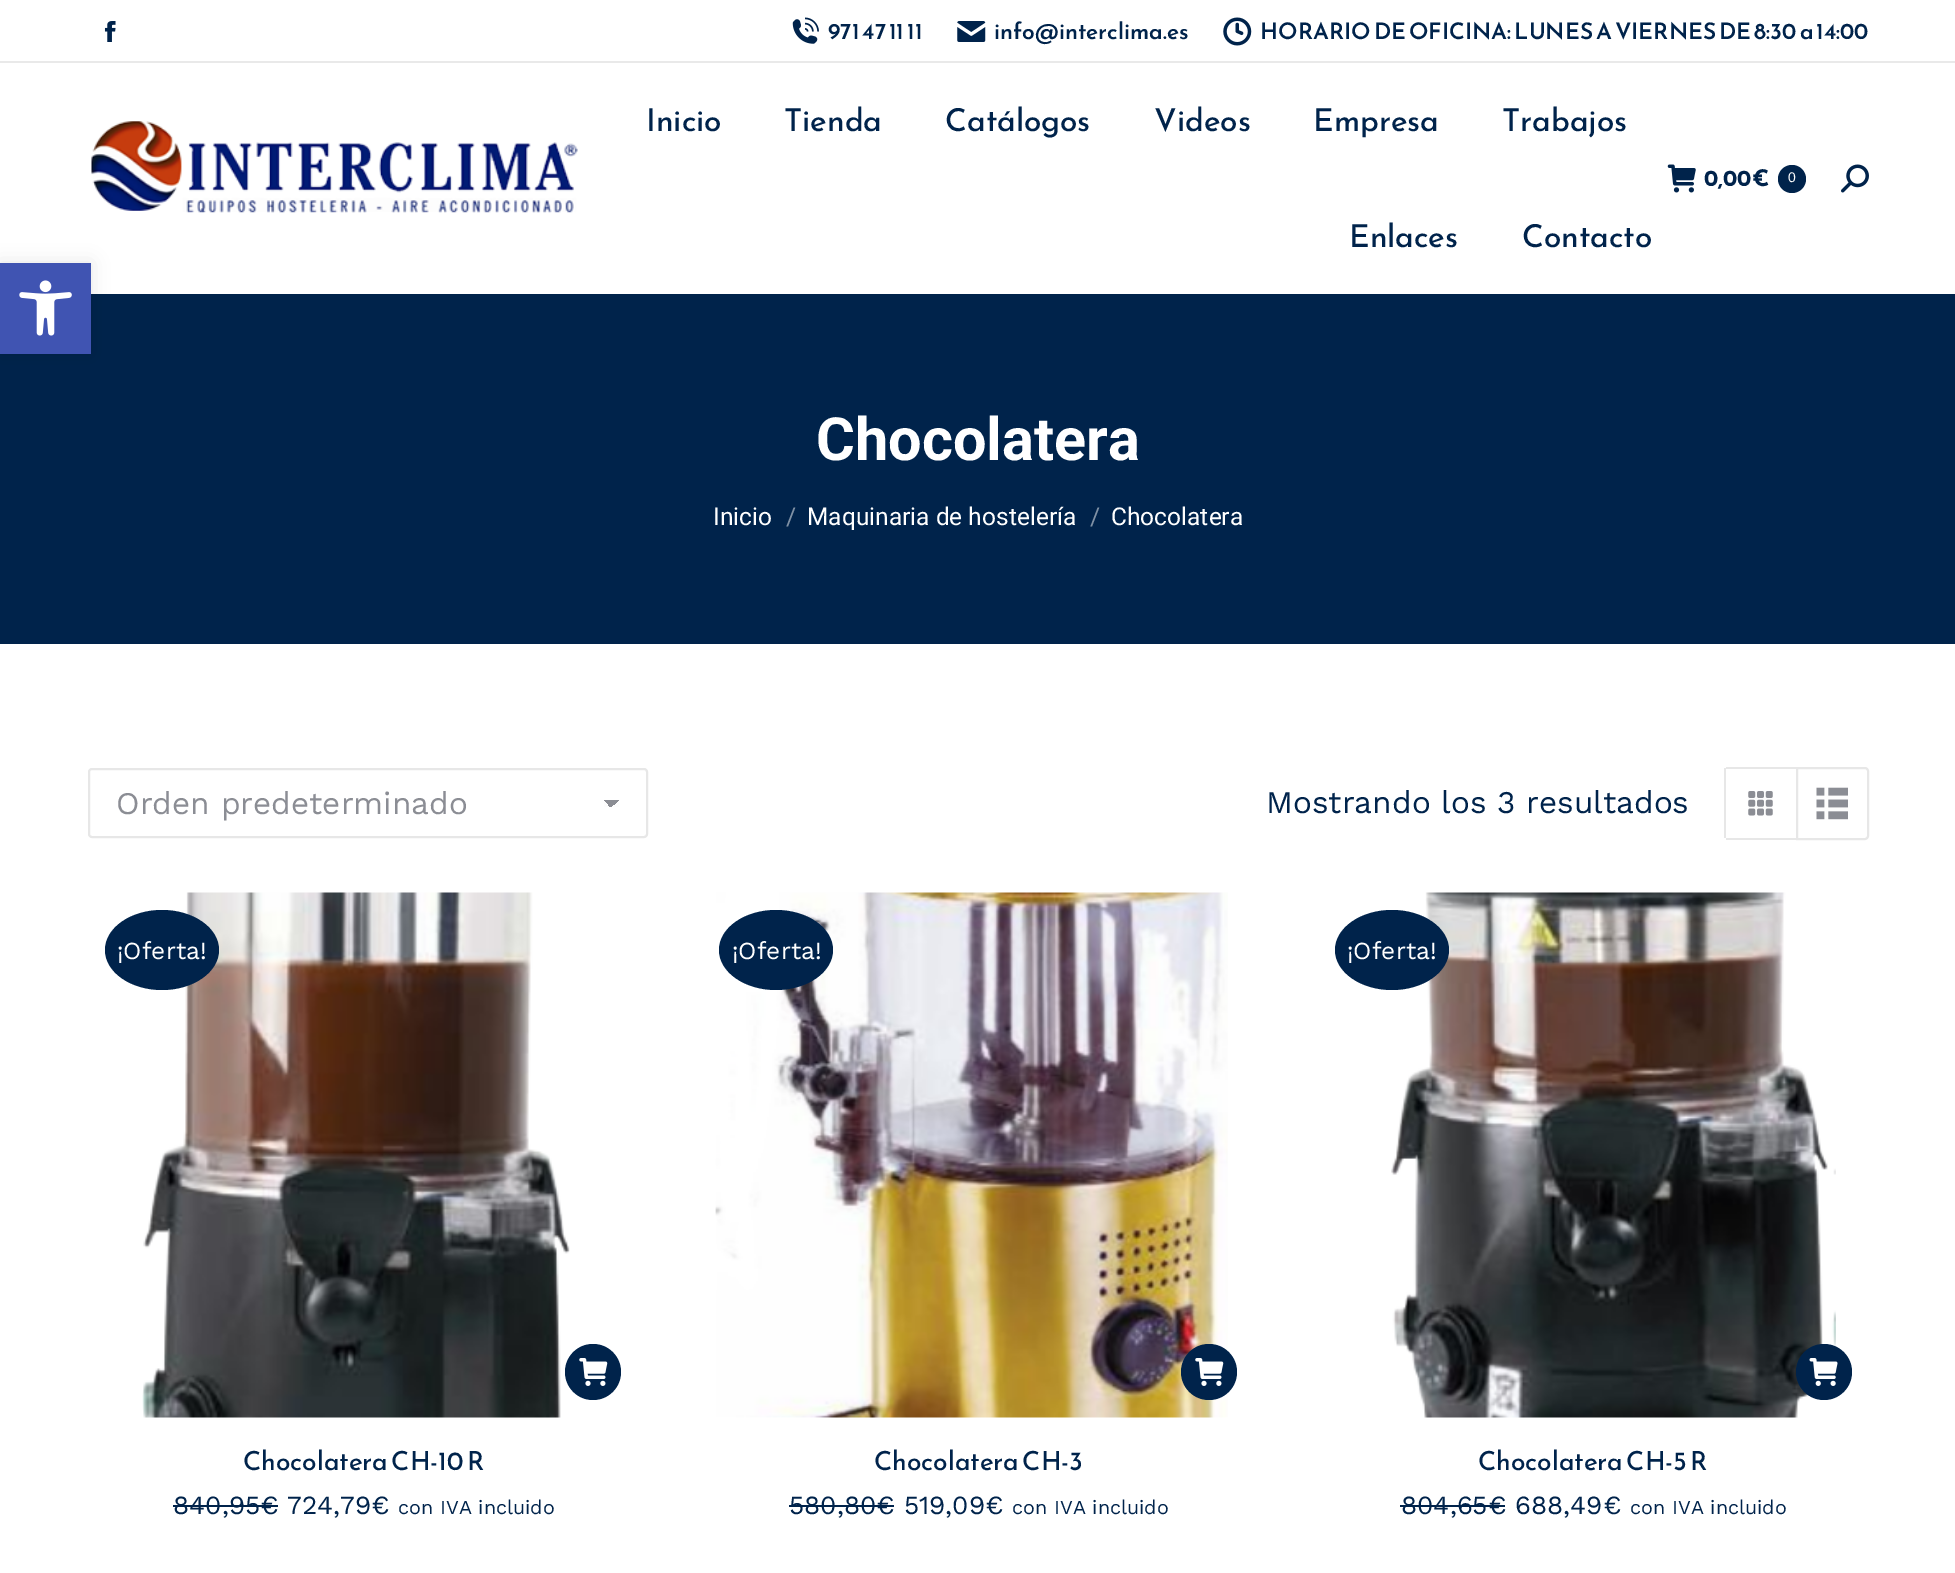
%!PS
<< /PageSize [1955 1573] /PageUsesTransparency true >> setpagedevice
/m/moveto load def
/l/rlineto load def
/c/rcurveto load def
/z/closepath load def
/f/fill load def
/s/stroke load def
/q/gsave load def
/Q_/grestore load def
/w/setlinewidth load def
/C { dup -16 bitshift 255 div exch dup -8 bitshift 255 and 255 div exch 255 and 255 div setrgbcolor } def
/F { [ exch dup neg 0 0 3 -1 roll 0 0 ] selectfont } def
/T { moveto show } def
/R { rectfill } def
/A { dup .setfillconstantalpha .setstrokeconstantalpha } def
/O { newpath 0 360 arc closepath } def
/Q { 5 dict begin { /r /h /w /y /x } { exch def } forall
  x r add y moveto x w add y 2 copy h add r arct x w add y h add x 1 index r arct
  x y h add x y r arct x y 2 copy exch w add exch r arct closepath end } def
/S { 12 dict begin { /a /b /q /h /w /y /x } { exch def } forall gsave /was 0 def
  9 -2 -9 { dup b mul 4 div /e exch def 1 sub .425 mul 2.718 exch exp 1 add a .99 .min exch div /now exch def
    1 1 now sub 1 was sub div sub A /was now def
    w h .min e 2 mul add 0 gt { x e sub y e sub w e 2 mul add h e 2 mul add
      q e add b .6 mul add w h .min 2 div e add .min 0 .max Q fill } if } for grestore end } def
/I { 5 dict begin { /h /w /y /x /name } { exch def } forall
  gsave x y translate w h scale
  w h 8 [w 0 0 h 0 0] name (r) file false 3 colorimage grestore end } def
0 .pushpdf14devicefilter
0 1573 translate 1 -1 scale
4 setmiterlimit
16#FFFFFF C
0 0 1955 1573 R
16#00234B C
0 294 1955 350 R
16#000000 C
0 263 91 91 0 9 .1 S
16#4054B2 C
0 263 91 91 R
(1.rgb) 19 280 53 56 I
(2.rgb) 104 21 12 21 I
(3.rgb) 792 17 27 27 I
/ReemKufi-Medium 22.75 F
16#00234B C
(971 47 11 11) 828 39 T
(4.rgb) 957 21 29 21 I
(info@interclima.es) 994 39 T
(5.rgb) 1223 17 29 29 I
(HORARIO DE OFICINA: LUNES A VIERNES DE 8:30 a 14:00) 1260 39 T
16#E9E9E9 C
0 61 1955 2 R
(6.rgb) 91 121 487 92 I
/ReemKufi-Regular 31.5 F
16#00234B C
(Inicio) 646 131 T
(Tienda) 784 131 T
(Catálogos) 945 131 T
(Videos) 1154 131 T
(Empresa) 1313 131 T
(Trabajos) 1502 131 T
(Enlaces) 1349 247 T
(Contacto) 1522 247 T
(7.rgb) 1667 164 29 29 I
/ReemKufi-Bold 22.75 F
(0,00€) 1704 186 T
1792 179 14 O f
/LiberationSans-Regular 14 F
16#FFFFFF C
(0) 1788 182 T
(8.rgb) 1841 164 28 29 I
/Roboto-Bold 59.5 F
(Chocolatera) 816 460 T
/Roboto-Regular 24.5 F
(Inicio) 713 525 T
16#8091A5 C
(/) 786 525 T
16#FFFFFF C
(Maquinaria de hostelería) 807 525 T
16#8091A5 C
(/) 1090 525 T
16#FFFFFF C
(Chocolatera) 1111 525 T
q 611 800 m 8 0 l 0 7 l -8 0 l z clip newpath
<< /ShadingType 2 /ColorSpace /DeviceRGB /Coords [611 799 620 808] /Extend [true true] /Function << /FunctionType 3 /Domain [0 1] /Functions [<< /FunctionType 2 /Domain [0 1] /C0 [.545 .553 .58] /C1 [.545 .553 .58] /N 1 >> << /FunctionType 2 /Domain [0 1] /C0 [.992 .992 .992] /C1 [.992 .992 .992] /N 1 >>] /Bounds [.5] /Encode [0 1 0 1] >> >> shfill Q_
q 604 800 m 7 0 l 0 7 l -7 0 l z clip newpath
<< /ShadingType 2 /ColorSpace /DeviceRGB /Coords [602 808 611 799] /Extend [true true] /Function << /FunctionType 3 /Domain [0 1] /Functions [<< /FunctionType 2 /Domain [0 1] /C0 [.992 .992 .992] /C1 [.992 .992 .992] /N 1 >> << /FunctionType 2 /Domain [0 1] /C0 [.545 .553 .58] /C1 [.545 .553 .58] /N 1 >>] /Bounds [.5] /Encode [0 1 0 1] >> >> shfill Q_
16#E7E7E7 C
2 w
89 769 558 68 3 Q s
/WorkSans-Regular 31.5 F
16#8B8D94 C
(Orden predeterminado) 116 814 T
16#00234B C
(Mostrando los 3 resultados) 1266 813 T
16#E7E7E7 C
1726 767 70 2 R
1726 838 70 2 R
1724 768 2 70 R
(9.rgb) 1748 791 25 25 I
1797 768 m 68 0 l 1.5 0 3 1.5 3 3 c 0 65 l 0 1.5 -1.5 3 -3 3 c -68 0 l z s
(10.rgb) 1816 787 32 33 I
(11.rgb) 142 892 428 526 I
16#00234B C
162 910 m 31.5 0 57 18 57 40 c 0 22 -25.5 40 -57 40 c -31.5 0 -57 -18 -57 -40 c 0 -22 25.5 -40 57 -40 c z f
/WorkSans-Regular 24.5 F
16#FFFFFF C
(¡Oferta!) 117 959 T
16#00234B C
593 1372 28 O f
(12.rgb) 579 1358 29 28 I
/ReemKufi-Regular 26.25 F
(Chocolatera CH-10 R) 243 1470 T
/WorkSans-Regular 26.25 F
(840,95€ 724,79€) 173 1514 T
173 1505 105 2 R
/WorkSans-Regular 19.75 F
(con IVA incluido) 398 1514 T
(13.rgb) 715 892 513 526 I
776 910 m 31.5 0 57 18 57 40 c 0 22 -25.5 40 -57 40 c -31.5 0 -57 -18 -57 -40 c 0 -22 25.5 -40 57 -40 c z f
/WorkSans-Regular 24.5 F
16#FFFFFF C
(¡Oferta!) 732 959 T
16#00234B C
1209 1372 28 O f
(12.rgb) 1195 1358 29 28 I
/ReemKufi-Regular 26.25 F
(Chocolatera CH-3) 874 1470 T
/WorkSans-Regular 26.25 F
(580,80€ 519,09€) 789 1514 T
789 1505 105 2 R
/WorkSans-Regular 19.75 F
(con IVA incluido) 1012 1514 T
(14.rgb) 1391 892 445 526 I
1392 910 m 31.5 0 57 18 57 40 c 0 22 -25.5 40 -57 40 c -31.5 0 -57 -18 -57 -40 c 0 -22 25.5 -40 57 -40 c z f
/WorkSans-Regular 24.5 F
16#FFFFFF C
(¡Oferta!) 1347 959 T
16#00234B C
1824 1372 28 O f
(15.rgb) 1809 1358 29 28 I
/ReemKufi-Regular 26.25 F
(Chocolatera CH-5 R) 1478 1470 T
/WorkSans-Regular 26.25 F
(804,65€ 688,49€) 1401 1514 T
1400 1505 105 2 R
/WorkSans-Regular 19.75 F
(con IVA incluido) 1630 1514 T
.poppdf14devicefilter showpage
